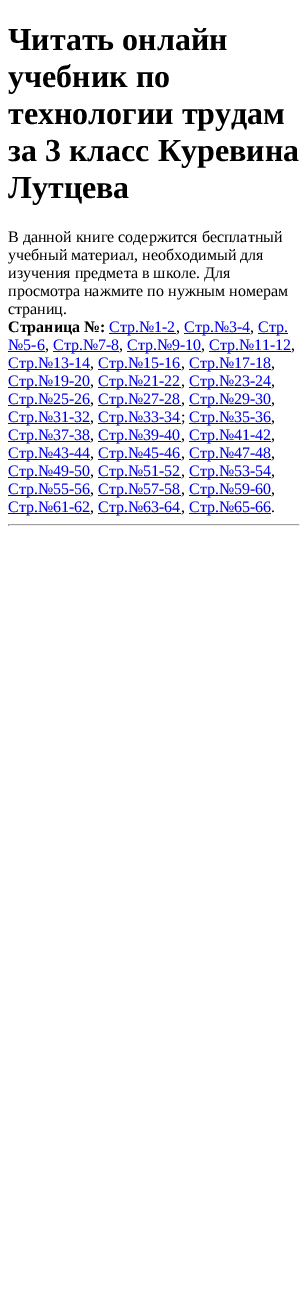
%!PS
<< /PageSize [308 1290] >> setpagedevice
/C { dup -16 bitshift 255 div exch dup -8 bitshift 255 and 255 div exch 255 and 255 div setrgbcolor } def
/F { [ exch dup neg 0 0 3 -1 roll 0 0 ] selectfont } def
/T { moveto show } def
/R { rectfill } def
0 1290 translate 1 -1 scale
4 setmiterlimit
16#FFFFFF C
0 0 308 1290 R
/LiberationSerif-Bold 32 F
16#000000 C
(Читать онлайн) 8 50 T
(учебник по) 8 87 T
(технологии трудам) 8 124 T
(за 3 класс Куревина) 8 161 T
(Лутцева) 8 198 T
/LiberationSerif-Regular 16 F
(В данной книге содержится бесплатный) 8 242 T
(учебный материал, необходимый для) 8 260 T
(изучения предмета в школе. Для) 8 278 T
(просмотра нажмите по нужным номерам) 8 296 T
(страниц.) 8 314 T
/LiberationSerif-Bold 16 F
(Страница №:) 8 332 T
16#0000EE C
109 333 67 1 R
/LiberationSerif-Regular 16 F
(Стр.№1-2) 109 332 T
16#000000 C
(,) 176 332 T
16#0000EE C
184 333 66 1 R
(Стр.№3-4) 184 332 T
16#000000 C
(,) 250 332 T
16#0000EE C
258 333 30 1 R
(Стр.) 258 332 T
(№5-6) 8 350 T
8 351 37 1 R
16#000000 C
(,) 45 350 T
16#0000EE C
53 351 66 1 R
(Стр.№7-8) 53 350 T
16#000000 C
(,) 119 350 T
16#0000EE C
127 351 74 1 R
(Стр.№9-10) 127 350 T
16#000000 C
(,) 201 350 T
16#0000EE C
209 351 82 1 R
(Стр.№11-12) 209 350 T
16#000000 C
(,) 291 350 T
16#0000EE C
8 369 82 1 R
(Стр.№13-14) 8 368 T
16#000000 C
(,) 90 368 T
16#0000EE C
98 369 83 1 R
(Стр.№15-16) 98 368 T
16#000000 C
(,) 181 368 T
16#0000EE C
189 369 82 1 R
(Стр.№17-18) 189 368 T
16#000000 C
(,) 271 368 T
16#0000EE C
8 387 82 1 R
(Стр.№19-20) 8 386 T
16#000000 C
(,) 90 386 T
16#0000EE C
98 387 83 1 R
(Стр.№21-22) 98 386 T
16#000000 C
(,) 181 386 T
16#0000EE C
189 387 82 1 R
(Стр.№23-24) 189 386 T
16#000000 C
(,) 271 386 T
16#0000EE C
8 405 82 1 R
(Стр.№25-26) 8 404 T
16#000000 C
(,) 90 404 T
16#0000EE C
98 405 83 1 R
(Стр.№27-28) 98 404 T
16#000000 C
(,) 181 404 T
16#0000EE C
189 405 82 1 R
(Стр.№29-30) 189 404 T
16#000000 C
(,) 271 404 T
16#0000EE C
8 423 82 1 R
(Стр.№31-32) 8 422 T
16#000000 C
(,) 90 422 T
16#0000EE C
98 423 83 1 R
(Стр.№33-34) 98 422 T
16#000000 C
(;) 181 422 T
16#0000EE C
189 423 82 1 R
(Стр.№35-36) 189 422 T
16#000000 C
(,) 271 422 T
16#0000EE C
8 441 82 1 R
(Стр.№37-38) 8 440 T
16#000000 C
(,) 90 440 T
16#0000EE C
98 441 83 1 R
(Стр.№39-40) 98 440 T
16#000000 C
(,) 181 440 T
16#0000EE C
189 441 82 1 R
(Стр.№41-42) 189 440 T
16#000000 C
(,) 271 440 T
16#0000EE C
8 459 82 1 R
(Стр.№43-44) 8 458 T
16#000000 C
(,) 90 458 T
16#0000EE C
98 459 83 1 R
(Стр.№45-46) 98 458 T
16#000000 C
(,) 181 458 T
16#0000EE C
189 459 82 1 R
(Стр.№47-48) 189 458 T
16#000000 C
(,) 271 458 T
16#0000EE C
8 477 82 1 R
(Стр.№49-50) 8 476 T
16#000000 C
(,) 90 476 T
16#0000EE C
98 477 83 1 R
(Стр.№51-52) 98 476 T
16#000000 C
(,) 181 476 T
16#0000EE C
189 477 82 1 R
(Стр.№53-54) 189 476 T
16#000000 C
(,) 271 476 T
16#0000EE C
8 495 82 1 R
(Стр.№55-56) 8 494 T
16#000000 C
(,) 90 494 T
16#0000EE C
98 495 83 1 R
(Стр.№57-58) 98 494 T
16#000000 C
(,) 181 494 T
16#0000EE C
189 495 82 1 R
(Стр.№59-60) 189 494 T
16#000000 C
(,) 271 494 T
16#0000EE C
8 513 82 1 R
(Стр.№61-62) 8 512 T
16#000000 C
(,) 90 512 T
16#0000EE C
98 513 83 1 R
(Стр.№63-64) 98 512 T
16#000000 C
(,) 181 512 T
16#0000EE C
189 513 82 1 R
(Стр.№65-66) 189 512 T
16#000000 C
(.) 271 512 T
16#9F9F9F C
8 524 292 1 R
16#EEEEEE C
299 524 1 2 R
8 525 292 1 R
16#9F9F9F C
8 524 1 2 R
showpage
